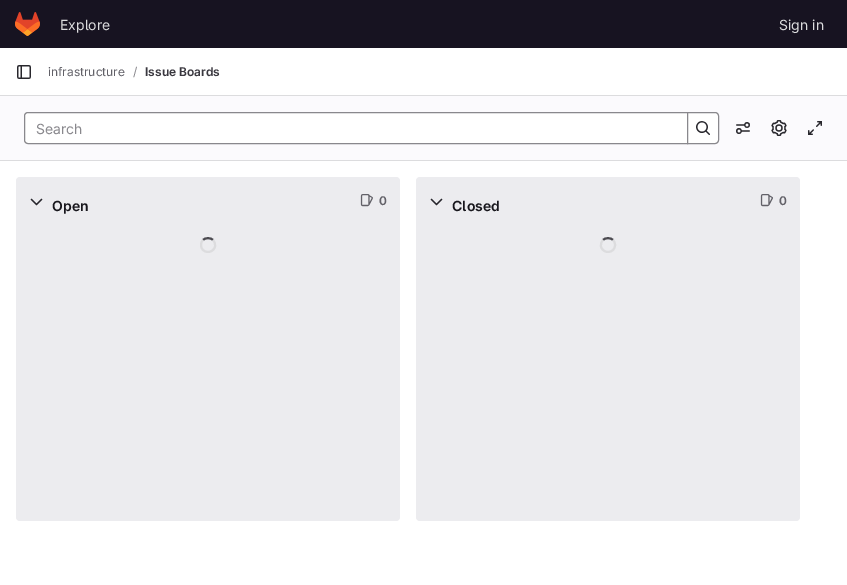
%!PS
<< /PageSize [847 585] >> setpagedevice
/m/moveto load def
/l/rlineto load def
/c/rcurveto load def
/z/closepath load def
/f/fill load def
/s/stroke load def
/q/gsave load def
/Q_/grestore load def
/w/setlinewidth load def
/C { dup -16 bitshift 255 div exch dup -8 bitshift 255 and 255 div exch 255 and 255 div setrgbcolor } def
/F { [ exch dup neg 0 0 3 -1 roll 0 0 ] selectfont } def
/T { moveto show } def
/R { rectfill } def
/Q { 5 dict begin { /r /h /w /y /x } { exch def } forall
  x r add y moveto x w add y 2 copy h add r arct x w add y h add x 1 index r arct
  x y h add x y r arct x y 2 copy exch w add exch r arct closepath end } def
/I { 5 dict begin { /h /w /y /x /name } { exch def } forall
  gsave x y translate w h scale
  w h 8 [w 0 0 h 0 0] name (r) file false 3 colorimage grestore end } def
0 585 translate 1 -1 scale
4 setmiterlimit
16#FFFFFF C
0 0 847 585 R
16#171321 C
0 0 847 48 R
(1.rgb) 15 12 25 24 I
/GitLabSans-Regular 14 F
16#DCDCDE C
(Explore) 60 30 T
(Sign in) 779 30 T
0 95 847 1 R
(2.rgb) 17 65 14 14 I
/GitLabSans-Regular 12 F
16#626168 C
(infrastructure) 48 76 T
16#89888D C
(/) 133 76 T
/GitLabSans-SemiBold 12 F
16#3A383F C
(Issue Boards) 145 76 T
16#FBFAFD C
0 96 847 64 R
16#DCDCDE C
0 160 847 1 R
16#FFFFFF C
28 112.5 m 659.5 0 l 0 31 l -659.5 0 l -2 0 -3.5 -1.5 -3.5 -3.5 c 0 -24 l 0 -2 1.5 -3.5 3.5 -3.5 c z q f Q_
16#89888D C
s
/GitLabSans-Regular 14 F
(Search) 36 134 T
16#FFFFFF C
687.5 112.5 m 27.5 0 l 2 0 3.5 1.5 3.5 3.5 c 0 24 l 0 2 -1.5 3.5 -3.5 3.5 c -27.5 0 l z q f Q_
16#89888D C
s
(3.rgb) 696 121 14 14 I
(4.rgb) 736 122 14 12 I
(5.rgb) 771 120 16 16 I
(6.rgb) 808 121 14 14 I
16#ECECEF C
16 177 384 344 4 Q f
16#28272D C
1.4 w
1 setlinecap
1 setlinejoin
31.5 199.5 m 5 5 l 5 -5 l s
/GitLabSans-SemiBold 14 F
16#18171D C
(Open) 52 211 T
(7.rgb) 360 194 13 13 I
/GitLabSans-SemiBold 12 F
16#626168 C
(0) 379 205 T
16#4C4B51 C
2 w
0 setlinecap
0 setlinejoin
203 240 m 2.5 -2.5 7.5 -2.5 10 0 c s
16#DCDCDE C
213 240 m 1.5 1.5 2.5 4 2 6.5 c -2 8 -14 7 -14 -1.5 c 0 -2 .5 -3.5 2 -5 c s
16#ECECEF C
416 177 384 344 4 Q f
16#28272D C
1.4 w
1 setlinecap
1 setlinejoin
431.5 199.5 m 5 5 l 5 -5 l s
/GitLabSans-SemiBold 14 F
16#18171D C
(Closed) 452 211 T
(8.rgb) 760 194 13 13 I
/GitLabSans-SemiBold 12 F
16#626168 C
(0) 779 205 T
16#4C4B51 C
2 w
0 setlinecap
0 setlinejoin
603 240 m 2.5 -2.5 7.5 -2.5 10 0 c s
16#DCDCDE C
613 240 m 1.5 1.5 2 3 2 5 c 0 8.5 -12 9.5 -14 1.5 c -.5 -2.5 .5 -5 2 -6.5 c s
showpage
